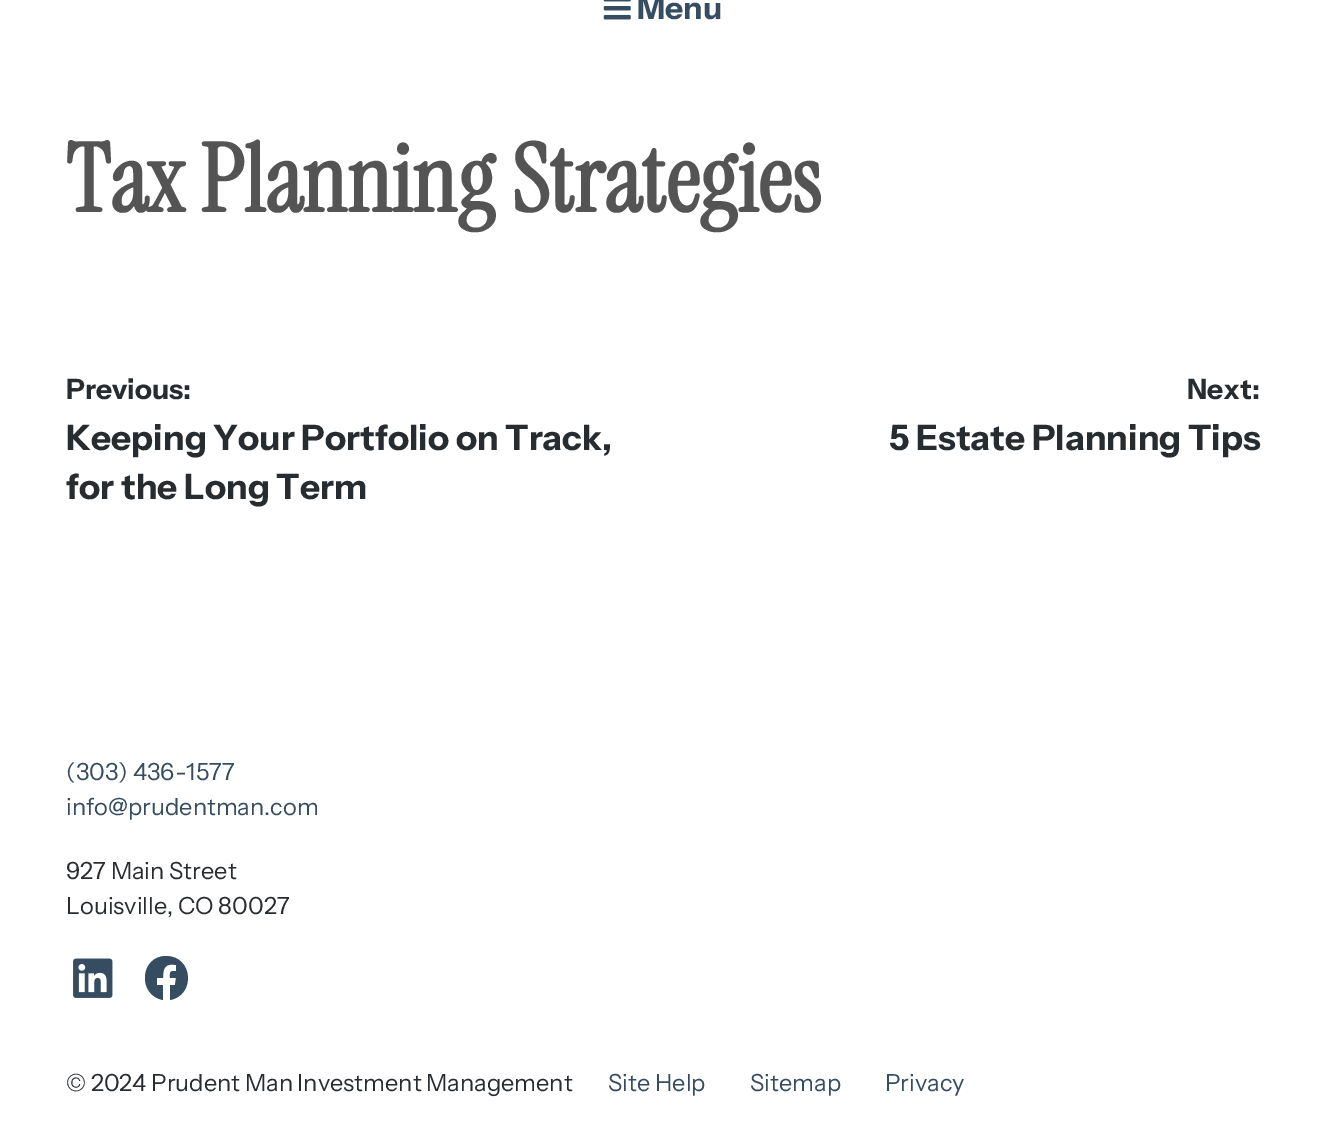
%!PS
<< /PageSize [1325 1142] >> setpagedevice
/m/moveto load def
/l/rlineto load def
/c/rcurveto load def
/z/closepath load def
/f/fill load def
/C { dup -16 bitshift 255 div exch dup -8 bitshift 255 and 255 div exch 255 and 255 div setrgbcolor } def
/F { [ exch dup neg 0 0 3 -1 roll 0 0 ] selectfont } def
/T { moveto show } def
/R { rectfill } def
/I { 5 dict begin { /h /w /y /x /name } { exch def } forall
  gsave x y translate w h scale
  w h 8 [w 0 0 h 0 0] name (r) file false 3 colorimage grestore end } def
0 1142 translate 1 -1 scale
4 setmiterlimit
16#FFFFFF C
0 0 1325 1142 R
(1.rgb) 603 0 28 20 I
/InstrumentSans-Bold 31.5 F
16#364C60 C
(Menu) 637 19 T
/InstrumentSerif-Bold 94.5 F
16#545454 C
(Tax Planning Strategies) 66 212 T
/InstrumentSans-Bold 28 F
16#272C30 C
(Previous:) 66 399 T
/InstrumentSans-Bold 35 F
(Keeping Your Portfolio on Track,) 66 450 T
(for the Long Term) 66 499 T
/InstrumentSans-Bold 28 F
(Next:) 1187 399 T
/InstrumentSans-Bold 35 F
(5 Estate Planning Tips) 889 450 T
/InstrumentSans-Regular 23.6 F
16#364C60 C
(\(303\) 436-1577) 66 780 T
(info@prudentman.com) 66 815 T
16#272C30 C
(927 Main Street) 66 879 T
(Louisville, CO 80027) 66 914 T
(2.rgb) 73 958 40 40 I
16#364C60 C
166 956 m -26 0 -29 39 -3 44 c 0 -15 l -6 0 l 0 -7 l 6 0 l 0 -10 2 -15 13 -13 c 0 6 l -7 0 -6 1 -6 7 c 6 0 l -1 7 l -5 0 l 0 15 l 26 -5 23 -44 -4 -44 c z f
16#272C30 C
(© 2024 Prudent Man Investment Management) 66 1091 T
16#364C60 C
(Site Help) 608 1091 T
(Sitemap) 750 1091 T
(Privacy) 885 1091 T
showpage
